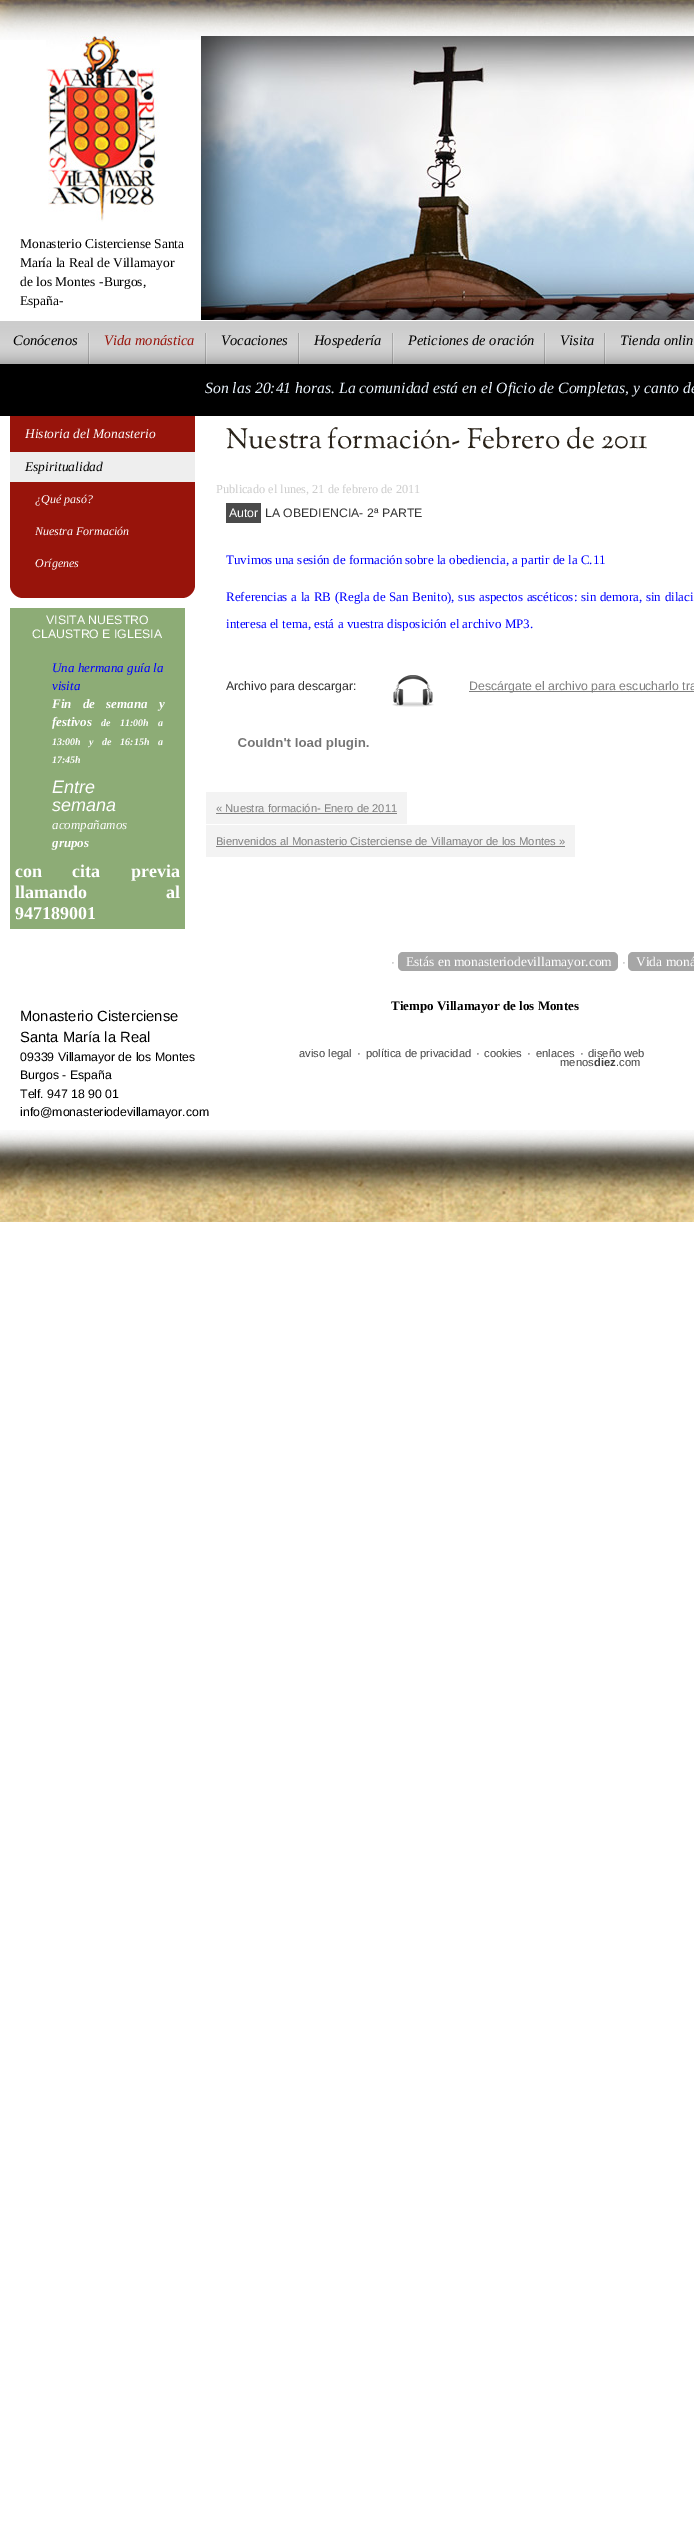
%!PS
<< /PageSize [694 2527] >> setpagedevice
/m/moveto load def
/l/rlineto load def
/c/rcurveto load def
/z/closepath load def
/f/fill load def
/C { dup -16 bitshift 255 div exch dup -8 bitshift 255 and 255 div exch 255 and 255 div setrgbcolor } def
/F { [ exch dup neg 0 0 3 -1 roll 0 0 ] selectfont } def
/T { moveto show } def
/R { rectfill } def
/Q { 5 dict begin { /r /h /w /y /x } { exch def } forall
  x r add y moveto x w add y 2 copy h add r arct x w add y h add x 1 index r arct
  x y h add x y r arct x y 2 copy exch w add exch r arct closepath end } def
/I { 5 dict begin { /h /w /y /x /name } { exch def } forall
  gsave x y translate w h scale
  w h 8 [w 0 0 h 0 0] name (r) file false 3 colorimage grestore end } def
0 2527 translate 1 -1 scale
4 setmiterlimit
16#FFFFFF C
0 0 694 2527 R
(1.rgb) 0 0 694 40 I
(2.rgb) 46 36 114 186 I
/LiberationSerif-Regular 13.5 F
16#000000 C
(Monasterio Cisterciense Santa) 20 248 T
(María la Real de Villamayor) 20 267 T
(de los Montes -Burgos,) 20 286 T
(España-) 20 305 T
(3.rgb) 201 36 493 284 I
(4.rgb) 0 321 694 43 I
(5.rgb) 88 333 2 31 I
/LiberationSerif-Italic 14.5 F
(Conócenos) 13 345 T
(5.rgb) 205 333 2 31 I
16#98140B C
(Vida monástica) 104 345 T
(5.rgb) 298 333 2 31 I
16#000000 C
(Vocaciones) 221 345 T
(5.rgb) 392 333 2 31 I
(Hospedería) 314 345 T
(5.rgb) 544 333 2 31 I
(Peticiones de oración) 408 345 T
(5.rgb) 604 333 2 31 I
(Visita) 560 345 T
(Tienda onlin) 620 345 T
0 364 694 52 R
/LiberationSerif-Italic 15.7 F
16#EDF6FF C
(Son las 20:41 horas. La comunidad está en el Oficio de Completas, y canto de) 205 393 T
16#98140B C
10 416 m 185 0 l 0 169 l 0 7 -6 13 -13 13 c -159 0 l -7 0 -13 -6 -13 -13 c z f
/LiberationSerif-Italic 13.5 F
16#FFFFFF C
(Historia del Monasterio) 25 438 T
16#EEEEEE C
10 452 185 30 R
16#000000 C
(Espiritualidad) 25 471 T
/LiberationSerif-Italic 12 F
16#FFFFFF C
(¿Qué pasó?) 35 503 T
(Nuestra Formación) 35 535 T
(Orígenes) 35 567 T
16#8DAC76 C
10 608 175 321 R
/LiberationSans-Regular 12.3 F
16#FFFFFF C
(VISITA NUESTRO) 46 624 T
(CLAUSTRO E IGLESIA) 32 638 T
/LiberationSerif-Italic 13 F
16#0000FF C
(Una hermana guía la) 52 672 T
(visita) 52 690 T
/LiberationSerif-BoldItalic 13 F
16#FFFFFF C
52 708 m 8 0 32 (Fin de semana y) widthshow
(festivos) 52 726 T
/LiberationSerif-BoldItalic 10 F
101 726 m 7 0 32 (de 11:00h a) widthshow
52 745 m 6 0 32 (13:00h y de 16:15h a) widthshow
(17:45h) 52 763 T
/LiberationSans-Italic 18 F
(Entre) 52 793 T
(semana) 52 811 T
/LiberationSerif-Italic 13 F
(acompañamos) 52 829 T
/LiberationSerif-BoldItalic 13 F
(grupos) 52 847 T
/LiberationSerif-Bold 18 F
15 877 m 26 0 32 (con cita previa) widthshow
15 898 m 74 0 32 (llamando al) widthshow
(947189001) 15 919 T
/OFLSortsMillGoudyTT-Medium 28 F
16#2A231A C
(Nuestra formación- Febrero de 2011) 226 448 T
/LiberationSerif-Regular 12.3 F
16#CCCCCC C
(Publicado el lunes, 21 de febrero de 2011) 216 493 T
16#4A4A4A C
226 503 35 20 R
/LiberationSans-Regular 12.3 F
16#FFFFFF C
(Autor) 229 517 T
16#333333 C
(LA OBEDIENCIA- 2ª PARTE) 265 517 T
/LiberationSerif-Regular 13 F
16#0000FF C
(Tuvimos una sesión de formación sobre la obediencia, a partir de la C.11) 226 564 T
226 601 m .5 0 32 (Referencias a la RB \(Regla de San Benito\), sus aspectos ascéticos: sin demora, sin dilaci) widthshow
(interesa el tema, está a vuestra disposición el archivo MP3.) 226 628 T
/LiberationSans-Regular 12.3 F
16#333333 C
(Archivo para descargar:) 226 690 T
(6.rgb) 392 675 42 32 I
16#808080 C
469 691 225 1 R
(Descárgate el archivo para escucharlo tra) 469 690 T
(7.rgb) 238 738 131 12 I
16#F3F3F3 C
206 792 201 32 R
/LiberationSans-Regular 11.2 F
16#808080 C
(« Nuestra formación- Enero de 2011) 216 812 T
216 813 181 1 R
16#F3F3F3 C
206 825 369 32 R
16#808080 C
216 846 349 1 R
(Bienvenidos al Monasterio Cisterciense de Villamayor de los Montes ») 216 845 T
16#A6A6A6 C
(·) 391 966 T
398 952 220 19 5 Q f
/LiberationSerif-Regular 13.5 F
16#FFFFFF C
(Estás en monasteriodevillamayor.com) 406 966 T
/LiberationSans-Regular 11.2 F
16#A6A6A6 C
(·) 622 966 T
628 952 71 19 5 Q f
/LiberationSerif-Regular 13.5 F
16#FFFFFF C
(Vida moná) 636 966 T
/LiberationSans-Regular 14.75 F
16#000000 C
(Monasterio Cisterciense) 20 1021 T
(Santa María la Real) 20 1042 T
/LiberationSans-Regular 12.3 F
(09339 Villamayor de los Montes) 20 1061 T
(Burgos - España) 20 1079 T
(Telf. 947 18 90 01) 20 1098 T
(info@monasteriodevillamayor.com) 20 1116 T
/LiberationSerif-Bold 13 F
(Tiempo Villamayor de los Montes) 391 1010 T
/LiberationSans-Regular 11.2 F
16#414141 C
(aviso legal) 299 1057 T
(·) 357 1057 T
(política de privacidad) 366 1057 T
(·) 476 1057 T
(cookies) 484 1057 T
(·) 527 1057 T
(enlaces) 536 1057 T
(·) 580 1057 T
(diseño web) 588 1057 T
(menos) 560 1066 T
/LiberationSans-Bold 11.2 F
(diez) 594 1066 T
/LiberationSans-Regular 11.2 F
(.com) 616 1066 T
(8.rgb) 0 1130 694 92 I
showpage
